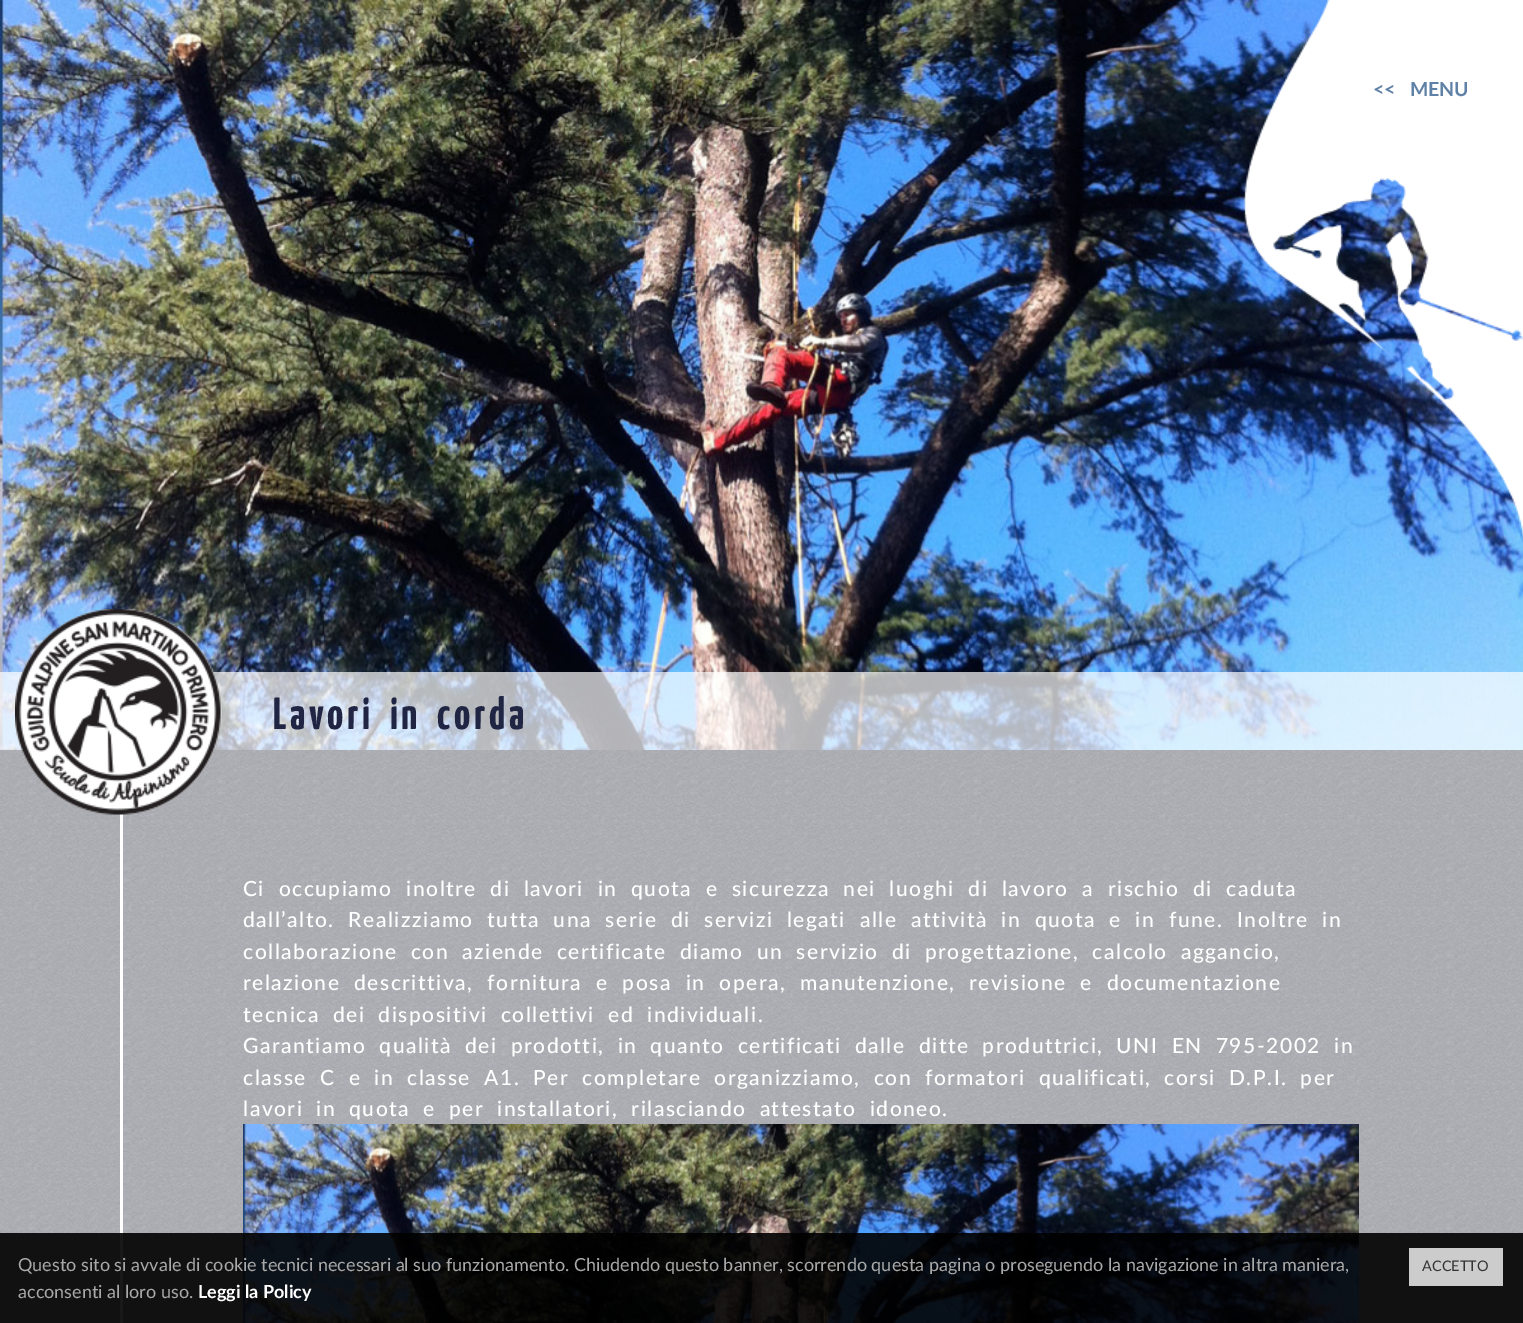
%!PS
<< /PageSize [1523 1323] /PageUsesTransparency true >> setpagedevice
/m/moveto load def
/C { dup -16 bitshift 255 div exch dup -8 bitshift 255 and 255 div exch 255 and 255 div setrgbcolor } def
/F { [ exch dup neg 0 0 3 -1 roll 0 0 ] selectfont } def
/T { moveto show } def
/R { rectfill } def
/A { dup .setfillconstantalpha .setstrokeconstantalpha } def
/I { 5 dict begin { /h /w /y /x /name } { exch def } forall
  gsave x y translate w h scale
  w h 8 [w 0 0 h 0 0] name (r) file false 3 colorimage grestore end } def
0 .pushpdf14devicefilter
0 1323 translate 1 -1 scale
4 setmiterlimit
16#FFFFFF C
0 0 1523 1323 R
(1.rgb) 0 750 1523 573 I
(2.rgb) 0 0 1523 750 I
(3.rgb) 1243 0 280 540 I
/Lato-Bold 19.5 F
16#5F81A6 C
(<<   MENU) 1373 96 T
0.7 A
16#FFFFFF C
0 672 1523 78 R
1 A
120 814 3 509 R
(4.rgb) 15 609 207 206 I
/YanoneKaffeesatz-Bold 45 F
16#202543 C
273 729 m 6.25 0 32 3.6 0 (Lavori in corda) awidthshow
/Lato-Medium 21 F
16#FFFFFF C
243 896 m 6.75 0 32 1.5 0 (Ci occupiamo inoltre di lavori in quota e sicurezza nei luoghi di lavoro a rischio di caduta) awidthshow
243 927 m 6.75 0 32 1.5 0 (dall’alto. Realizziamo tutta una serie di servizi legati alle attività in quota e in fune. Inoltre in) awidthshow
243 959 m 6.25 0 32 1.5 0 (collaborazione con aziende certificate diamo un servizio di progettazione, calcolo aggancio,) awidthshow
243 990 m 7 0 32 1.5 0 (relazione descrittiva, fornitura e posa in opera, manutenzione, revisione e documentazione) awidthshow
243 1022 m 6.25 0 32 1.5 0 (tecnica dei dispositivi collettivi ed individuali.) awidthshow
243 1053 m 6.25 0 32 1.5 0 (Garantiamo qualità dei prodotti, in quanto certificati dalle ditte produttrici, UNI EN 795-2002 in) awidthshow
243 1085 m 6.25 0 32 1.5 0 (classe C e in classe A1. Per completare organizziamo, con formatori qualificati, corsi D.P.I. per) awidthshow
243 1116 m 6.25 0 32 1.5 0 (lavori in quota e per installatori, rilasciando attestato idoneo.) awidthshow
(5.rgb) 243 1124 1116 199 I
0.9 A
16#000000 C
0 1233 1523 90 R
/Lato-Regular 18 F
1 A
16#A9A9A9 C
(Questo sito si avvale di cookie tecnici necessari al suo funzionamento. Chiudendo questo banner, scorrendo questa pagina o proseguendo la navigazione in altra maniera,) 18 1271 T
(acconsenti al loro uso.) 18 1298 T
/Lato-Bold 18 F
16#FFFFFF C
(Leggi la Policy) 198 1298 T
16#CCCCCC C
1409 1248 94 38 R
/Lato-Regular 14.5 F
16#333333 C
(ACCETTO) 1422 1271 T
.poppdf14devicefilter showpage
